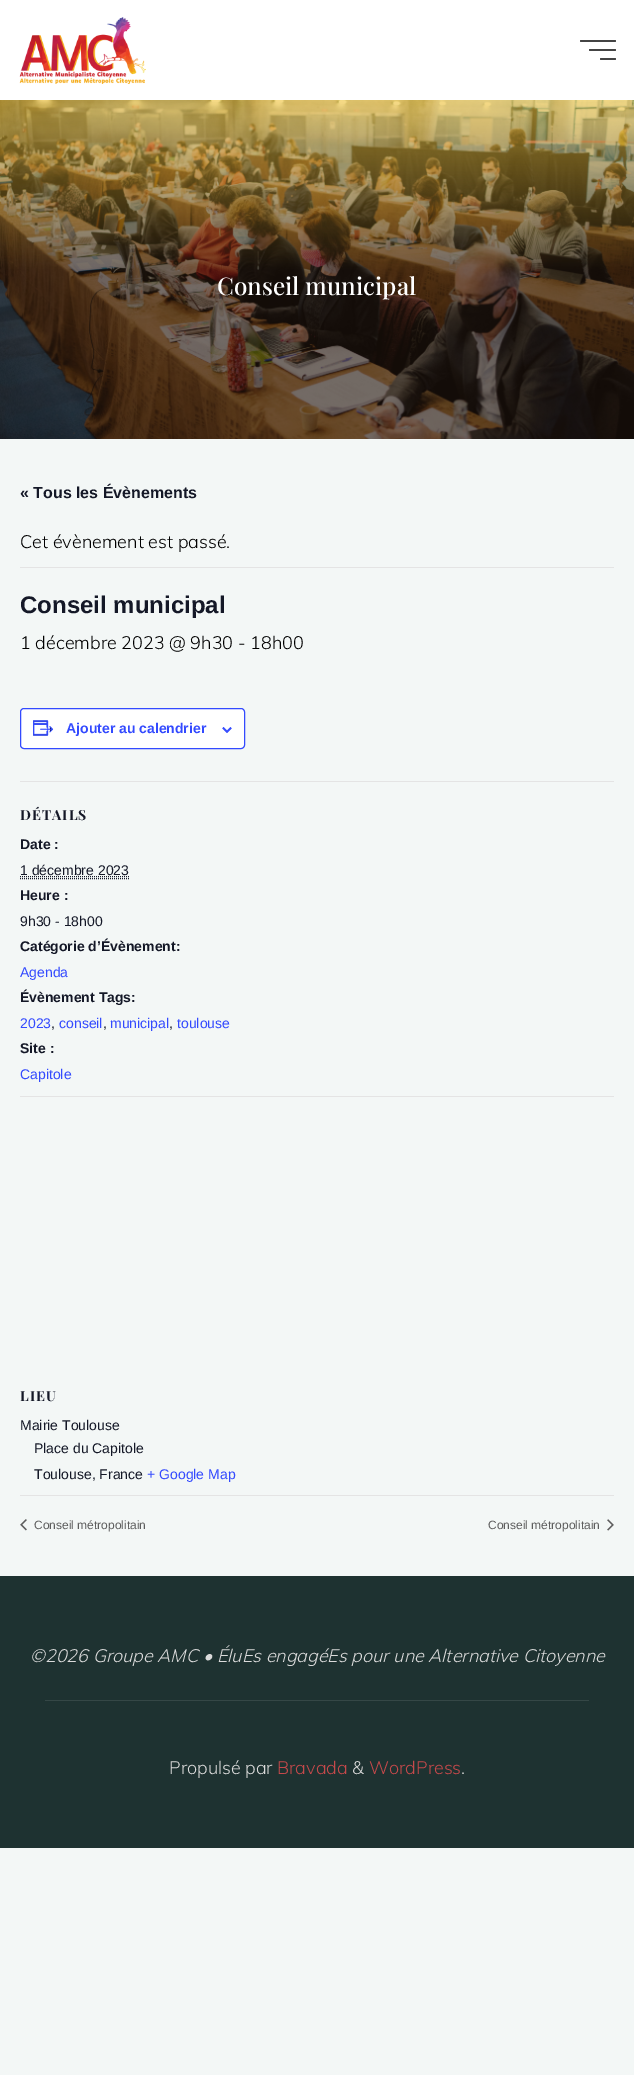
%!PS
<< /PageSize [634 2075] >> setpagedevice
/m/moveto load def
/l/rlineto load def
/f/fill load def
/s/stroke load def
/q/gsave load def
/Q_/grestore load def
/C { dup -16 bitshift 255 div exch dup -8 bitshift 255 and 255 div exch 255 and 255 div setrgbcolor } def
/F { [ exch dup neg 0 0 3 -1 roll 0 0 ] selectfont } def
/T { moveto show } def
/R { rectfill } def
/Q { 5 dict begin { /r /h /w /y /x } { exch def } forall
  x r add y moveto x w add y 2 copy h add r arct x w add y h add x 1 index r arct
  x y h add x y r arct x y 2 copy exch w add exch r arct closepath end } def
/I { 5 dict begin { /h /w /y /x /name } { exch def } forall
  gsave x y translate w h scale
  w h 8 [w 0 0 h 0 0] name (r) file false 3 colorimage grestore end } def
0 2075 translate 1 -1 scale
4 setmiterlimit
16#F3F7F6 C
0 0 634 2075 R
16#FFFFFF C
0 0 634 100 R
(1.rgb) 19 17 127 67 I
16#444444 C
580 40 36 2 1 Q f
589 49 27 2 1 Q f
600 58 16 2 1 Q f
(2.rgb) 0 100 634 339 I
/PlayfairDisplay-Medium 24.25 F
16#FFFFFF C
(Conseil municipal) 217 295 T
/LiberationSans-Bold 16 F
16#141827 C
(« Tous les Évènements) 20 498 T
16#E4E4E4 C
20 567 594 1 R
/Muli-Light 18 F
16#000000 C
(Cet évènement est passé.) 20 548 T
/LiberationSans-Bold 24 F
16#141827 C
(Conseil municipal) 20 613 T
/Muli-Light 18 F
16#000000 C
(1 décembre 2023 @ 9h30 - 18h00) 20 649 T
16#FFFFFF C
20.5 708.5 224 40 3.5 Q q f Q_
16#334AFF C
s
(3.rgb) 33 720 21 16 I
/LiberationSans-Bold 14 F
(Ajouter au calendrier) 66 733 T
(4.rgb) 222 727 10 6 I
16#E4E4E4 C
20 781 594 1 R
/PlayfairDisplay-Bold 14 F
16#141827 C
20 820 m 1 0 (DÉTAILS) ashow
/LiberationSans-Bold 14 F
(Date :) 20 849 T
/LiberationSans-Regular 14 F
(1 décembre 2023) 20 875 T
[1 1] 0 setdash
20 878.5 m 109 0 l s
20 876.5 m 109 0 l s
/LiberationSans-Bold 14 F
(Heure :) 20 900 T
/LiberationSans-Regular 14 F
(9h30 - 18h00) 20 926 T
/LiberationSans-Bold 14 F
(Catégorie d’Évènement:) 20 951 T
/LiberationSans-Regular 14 F
16#334AFF C
(Agenda) 20 977 T
/LiberationSans-Bold 14 F
16#141827 C
(Évènement Tags:) 20 1002 T
/LiberationSans-Regular 14 F
16#334AFF C
(2023) 20 1028 T
16#141827 C
(,) 51 1028 T
16#334AFF C
(conseil) 59 1028 T
16#141827 C
(,) 103 1028 T
16#334AFF C
(municipal) 110 1028 T
16#141827 C
(,) 169 1028 T
16#334AFF C
(toulouse) 177 1028 T
/LiberationSans-Bold 14 F
16#141827 C
(Site :) 20 1053 T
/LiberationSans-Regular 14 F
16#334AFF C
(Capitole) 20 1079 T
16#E4E4E4 C
20 1096 594 1 R
/PlayfairDisplay-Bold 14 F
16#141827 C
20 1401 m 1 0 (LIEU) ashow
/LiberationSans-Regular 14 F
(Mairie Toulouse) 20 1430 T
(Place du Capitole) 34 1453 T
(Toulouse, France) 34 1479 T
16#334AFF C
(+ Google Map) 147 1479 T
16#E4E4E4 C
20 1495 594 1 R
(5.rgb) 20 1519 7 12 I
/LiberationSans-Regular 12 F
16#5D5D5D C
(Conseil métropolitain) 34 1529 T
(Conseil métropolitain) 488 1529 T
(6.rgb) 607 1519 7 12 I
16#1E3231 C
0 1576 634 272 R
/Muli-LightItalic 18 F
16#DBDBDB C
(©2026 Groupe AMC • ÉluEs engagéEs pour une Alternative Citoyenne) 30 1662 T
16#354746 C
45 1700 544 1 R
/Muli-Light 18 F
16#DBDBDB C
(Propulsé par) 169 1774 T
16#C6494B C
(Bravada) 277 1774 T
16#DBDBDB C
(&) 352 1774 T
16#C6494B C
(WordPress) 369 1774 T
16#DBDBDB C
(.) 461 1774 T
showpage
